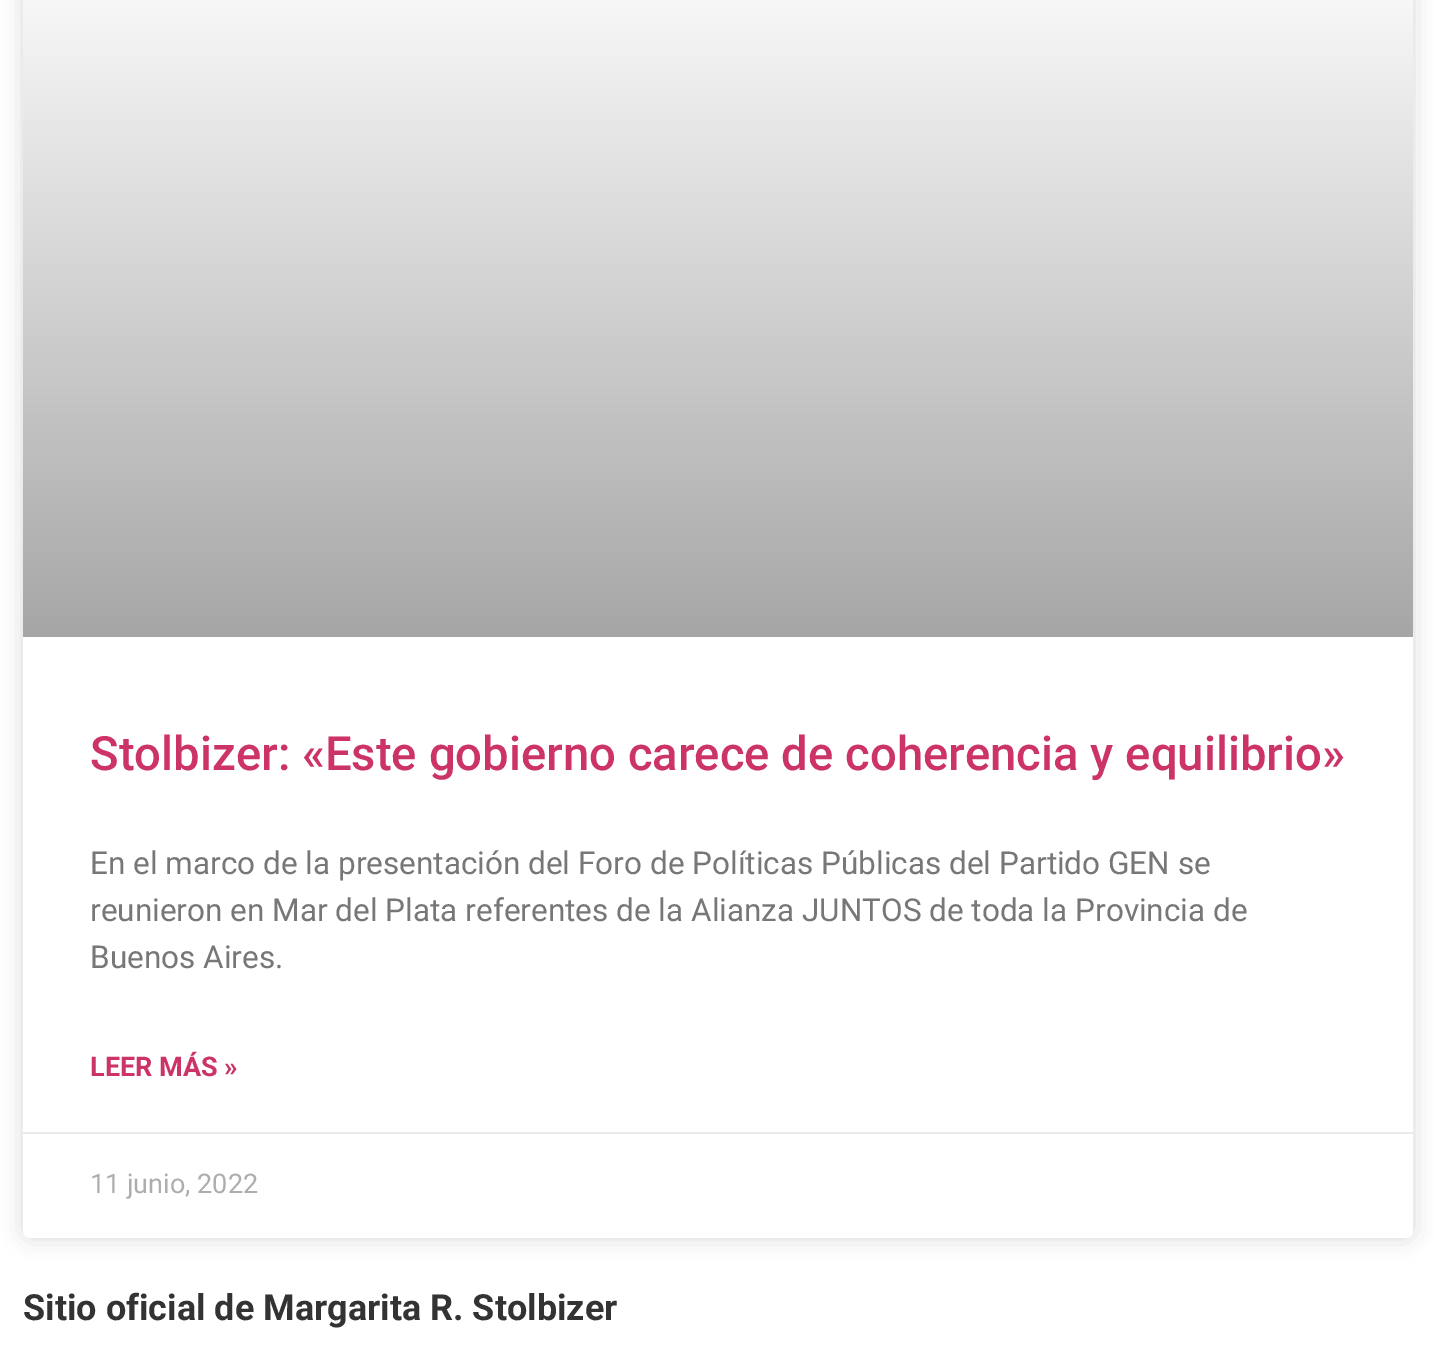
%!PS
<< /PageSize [1434 1357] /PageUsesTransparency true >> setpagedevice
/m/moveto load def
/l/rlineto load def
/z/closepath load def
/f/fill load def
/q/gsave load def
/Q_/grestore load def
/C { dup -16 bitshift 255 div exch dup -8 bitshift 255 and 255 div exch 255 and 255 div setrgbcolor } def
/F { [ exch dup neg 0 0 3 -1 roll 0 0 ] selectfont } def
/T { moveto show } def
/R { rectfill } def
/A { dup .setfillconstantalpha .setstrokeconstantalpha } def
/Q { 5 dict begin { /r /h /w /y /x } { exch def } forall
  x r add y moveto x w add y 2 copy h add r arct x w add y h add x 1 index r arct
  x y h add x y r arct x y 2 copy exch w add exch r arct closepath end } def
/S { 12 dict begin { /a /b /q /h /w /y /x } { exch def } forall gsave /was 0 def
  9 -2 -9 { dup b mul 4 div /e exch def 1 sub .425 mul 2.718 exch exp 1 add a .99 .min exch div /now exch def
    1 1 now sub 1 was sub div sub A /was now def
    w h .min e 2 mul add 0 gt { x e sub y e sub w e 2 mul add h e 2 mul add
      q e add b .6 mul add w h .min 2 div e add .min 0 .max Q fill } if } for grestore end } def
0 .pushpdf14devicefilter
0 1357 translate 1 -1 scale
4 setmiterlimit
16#FFFFFF C
0 0 1434 1357 R
16#000000 C
23 -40 1390 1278 7 11 .15 S
16#FFFFFF C
23 -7 1390 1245 7 Q f
q 23 0 m 1390 0 l 0 637 l -1390 0 l z clip newpath
<< /ShadingType 2 /ColorSpace /DeviceRGB /Coords [718 637 718 -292] /Extend [true true] /Function << /FunctionType 3 /Domain [0 1] /Functions [<< /FunctionType 2 /Domain [0 1] /C0 [.651 .651 .651] /C1 [1 1 1] /N 1 >> << /FunctionType 2 /Domain [0 1] /C0 [1 1 1] /C1 [1 1 1] /N 1 >>] /Bounds [.75] /Encode [0 1 0 1] >> >> shfill Q_
/Roboto-Medium 47.25 F
16#CC3366 C
(Stolbizer: «Este gobierno carece de coherencia y equilibrio») 90 770 T
/Roboto-Regular 31.5 F
16#777777 C
(En el marco de la presentación del Foro de Políticas Públicas del Partido GEN se) 90 874 T
(reunieron en Mar del Plata referentes de la Alianza JUNTOS de toda la Provincia de) 90 921 T
(Buenos Aires.) 90 968 T
/Roboto-Bold 27 F
16#CC3366 C
(LEER MÁS ») 90 1076 T
16#EAEAEA C
23 1132 1390 2 R
/Roboto-Regular 27 F
16#ADADAD C
(11 junio, 2022) 90 1193 T
/Roboto-Bold 36 F
16#333333 C
(Sitio oficial de Margarita R. Stolbizer) 23 1320 T
.poppdf14devicefilter showpage
